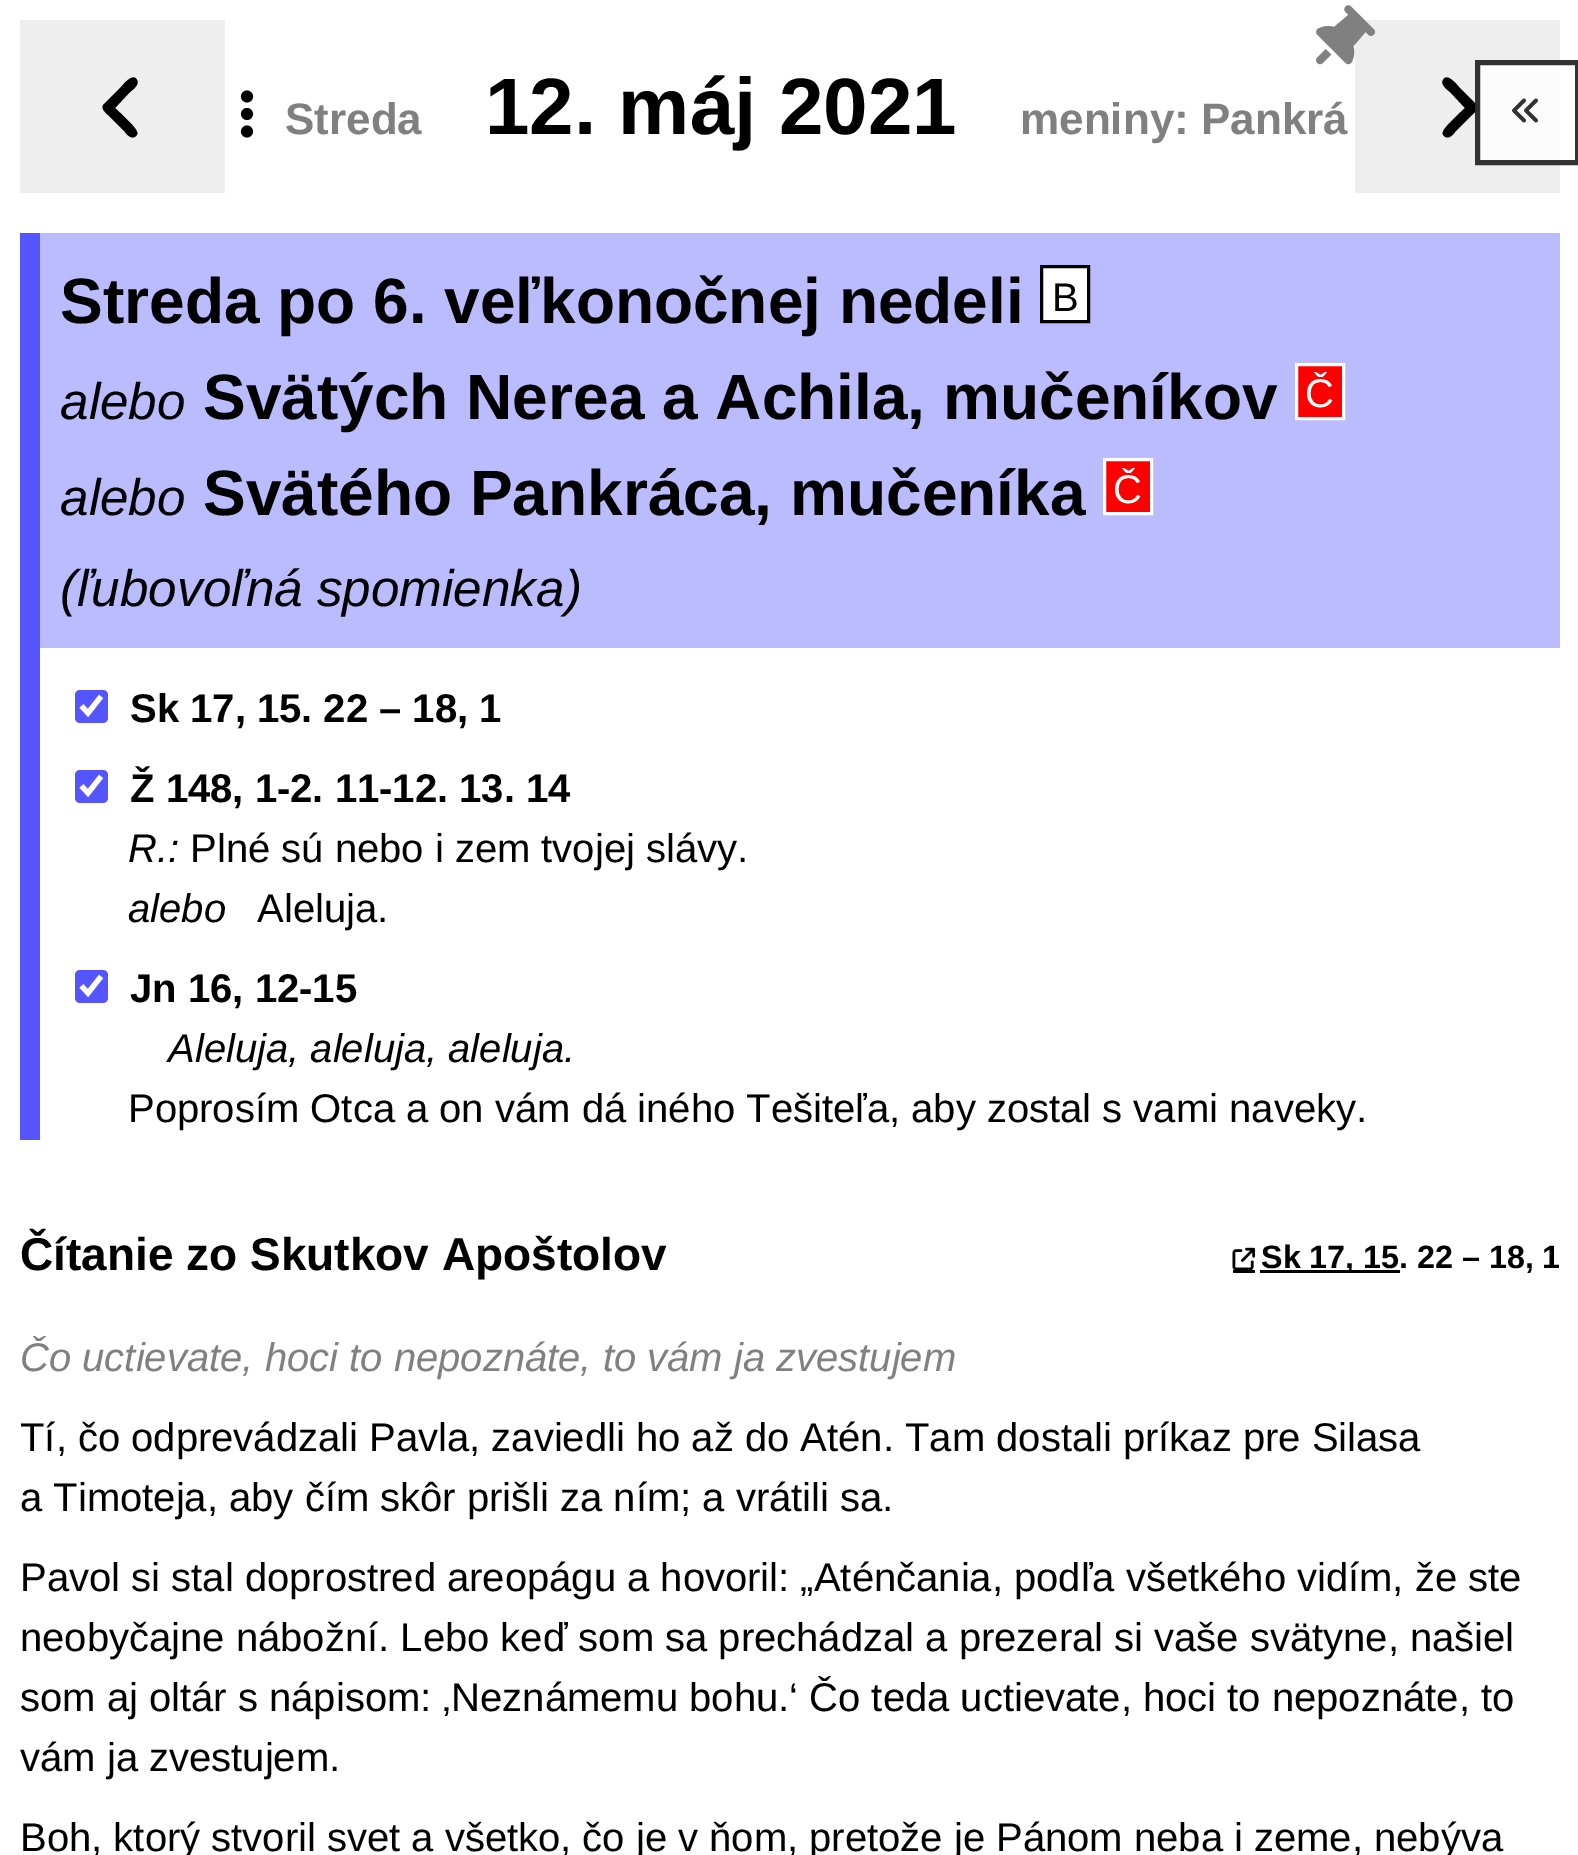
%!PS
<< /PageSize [1578 1855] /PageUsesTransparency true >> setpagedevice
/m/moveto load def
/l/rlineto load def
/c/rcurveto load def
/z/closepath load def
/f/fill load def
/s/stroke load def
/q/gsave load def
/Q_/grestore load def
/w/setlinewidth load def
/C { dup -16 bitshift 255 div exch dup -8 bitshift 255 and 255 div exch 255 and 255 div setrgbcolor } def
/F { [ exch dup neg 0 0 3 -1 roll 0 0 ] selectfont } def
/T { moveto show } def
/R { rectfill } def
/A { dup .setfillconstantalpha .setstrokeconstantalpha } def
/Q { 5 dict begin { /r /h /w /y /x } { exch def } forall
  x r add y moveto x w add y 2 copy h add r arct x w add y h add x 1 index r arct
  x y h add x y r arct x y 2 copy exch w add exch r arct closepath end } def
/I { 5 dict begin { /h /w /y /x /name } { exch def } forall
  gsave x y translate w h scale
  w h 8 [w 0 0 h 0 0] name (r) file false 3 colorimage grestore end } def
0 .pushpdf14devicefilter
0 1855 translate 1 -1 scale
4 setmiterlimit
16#FFFFFF C
0 0 1578 1855 R
16#EEEEEE C
1355 20 205 173 R
16#000000 C
1476 104 m 4 4 -1 8 -4 11 c -17 17 l -2 3 -7 8 -11 4 c -1 -1 -2 -3 -1 -4 c 0 -4 19 -21 22 -24 c -14 -15 l -3 -3 -11 -8 -8 -13 c 4 -8 14 5 16 7 c z f
0.8 A
16#FFFFFF C
1475 60 85 105 R
16#000000 C
5 w
1477.5 62.5 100 100 rectstroke
1 A
(1.rgb) 1512 98 26 25 I
16#EEEEEE C
20 20 205 173 R
16#000000 C
104 104 m -4 4 1 8 4 11 c 17 17 l 2 3 7 8 11 4 c 1 -1 2 -3 1 -4 c 0 -4 -19 -21 -22 -24 c 14 -15 l 3 -3 11 -8 8 -13 c -4 -8 -14 5 -16 7 c z f
(2.rgb) 1316 5 59 60 I
(3.rgb) 240 90 14 48 I
/LiberationSans-Bold 44 F
16#808080 C
(Streda) 285 134 T
/LiberationSans-Bold 80 F
16#000000 C
(12. máj 2021) 485 134 T
/LiberationSans-Bold 44 F
16#808080 C
(meniny: Pankrá) 1020 134 T
16#5555FF C
20 233 20 907 R
16#BBBBFF C
40 233 1520 415 R
/LiberationSans-Bold 64 F
16#000000 C
(Streda po 6. veľkonočnej nedeli) 60 323 T
16#FFFFFF C
1041.5 266.5 m 47 0 l 0 55 l -47 0 l z q f Q_
16#000000 C
3 w
s
/LiberationSans-Regular 40 F
(B) 1052 311 T
/LiberationSans-Italic 51.25 F
(alebo) 60 419 T
/LiberationSans-Bold 64 F
(Svätých Nerea a Achila, mučeníkov) 203 419 T
16#FF0000 C
1296.5 364.5 m 47 0 l 0 54 l -47 0 l z q f Q_
16#FFFFFF C
s
/LiberationSans-Regular 40 F
(Č) 1305 407 T
/LiberationSans-Italic 51.25 F
16#000000 C
(alebo) 60 515 T
/LiberationSans-Bold 64 F
(Svätého Pankráca, mučeníka) 203 515 T
16#FF0000 C
1104.5 459.5 m 47 0 l 0 54 l -47 0 l z q f Q_
16#FFFFFF C
s
/LiberationSans-Regular 40 F
(Č) 1113 503 T
/LiberationSans-Italic 51.25 F
16#000000 C
(\(ľubovoľná spomienka\)) 60 606 T
16#5555FF C
75 690 33 33 5 Q f
16#FFFFFF C
5.2 w
81.5 706 m 6.5 7 l 13 -16.5 l s
/LiberationSans-Bold 40 F
16#000000 C
(Sk 17, 15. 22 – 18, 1) 130 722 T
16#5555FF C
75 770 33 33 5 Q f
16#FFFFFF C
81.5 786 m 6.5 7 l 13 -16.5 l s
16#000000 C
(Ž 148, 1-2. 11-12. 13. 14) 130 802 T
/LiberationSans-Italic 40 F
(R.:) 128 862 T
/LiberationSans-Regular 40 F
(Plné sú nebo i zem tvojej slávy.) 190 862 T
/LiberationSans-Italic 40 F
(alebo) 128 922 T
/LiberationSans-Regular 40 F
(Aleluja.) 257 922 T
16#5555FF C
75 970 33 33 5 Q f
16#FFFFFF C
81.5 986 m 6.5 7 l 13 -16.5 l s
/LiberationSans-Bold 40 F
16#000000 C
(Jn 16, 12-15) 130 1002 T
/LiberationSans-Italic 40 F
(Aleluja, aleluja, aleluja.) 168 1062 T
/LiberationSans-Regular 40 F
(Poprosím Otca a on vám dá iného Tešiteľa, aby zostal s vami naveky.) 128 1122 T
/LiberationSans-Bold 46 F
(Čítanie zo Skutkov Apoštolov) 20 1270 T
(4.rgb) 1232 1247 24 23 I
1260 1270 140 3 R
/LiberationSans-Bold 32.25 F
(Sk 17, 15. 22 – 18, 1) 1261 1268 T
1233 1270 22 3 R
/LiberationSans-Italic 40 F
16#808080 C
(Čo uctievate, hoci to nepoznáte, to vám ja zvestujem) 20 1371 T
/LiberationSans-Regular 40 F
16#000000 C
(Tí, čo odprevádzali Pavla, zaviedli ho až do Atén. Tam dostali príkaz pre Silasa) 20 1451 T
(a Timoteja, aby čím skôr prišli za ním; a vrátili sa.) 20 1511 T
(Pavol si stal doprostred areopágu a hovoril: „Aténčania, podľa všetkého vidím, že ste) 20 1591 T
(neobyčajne nábožní. Lebo keď som sa prechádzal a prezeral si vaše svätyne, našiel) 20 1651 T
(som aj oltár s nápisom: ‚Neznámemu bohu.‘ Čo teda uctievate, hoci to nepoznáte, to) 20 1711 T
(vám ja zvestujem.) 20 1771 T
(Boh, ktorý stvoril svet a všetko, čo je v ňom, pretože je Pánom neba i zeme, nebýva) 20 1851 T
.poppdf14devicefilter showpage
